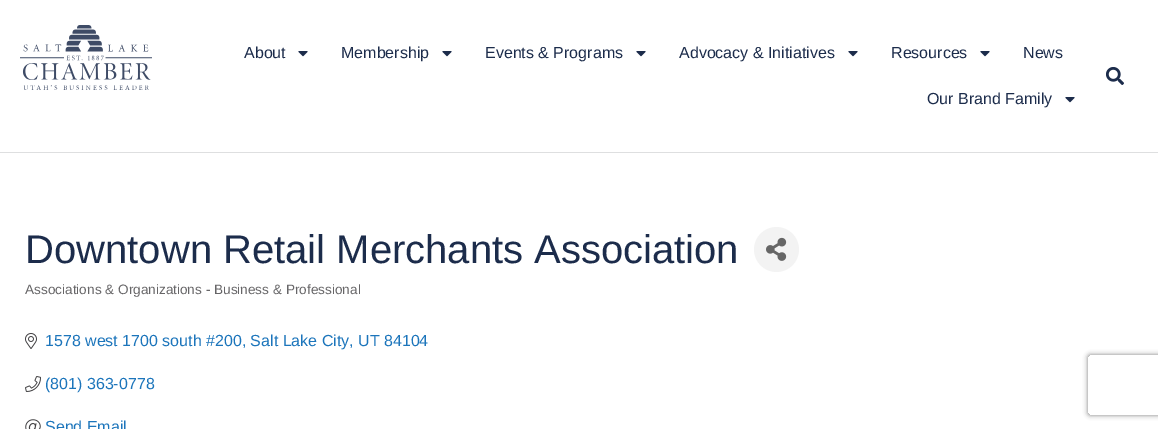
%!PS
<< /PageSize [1158 429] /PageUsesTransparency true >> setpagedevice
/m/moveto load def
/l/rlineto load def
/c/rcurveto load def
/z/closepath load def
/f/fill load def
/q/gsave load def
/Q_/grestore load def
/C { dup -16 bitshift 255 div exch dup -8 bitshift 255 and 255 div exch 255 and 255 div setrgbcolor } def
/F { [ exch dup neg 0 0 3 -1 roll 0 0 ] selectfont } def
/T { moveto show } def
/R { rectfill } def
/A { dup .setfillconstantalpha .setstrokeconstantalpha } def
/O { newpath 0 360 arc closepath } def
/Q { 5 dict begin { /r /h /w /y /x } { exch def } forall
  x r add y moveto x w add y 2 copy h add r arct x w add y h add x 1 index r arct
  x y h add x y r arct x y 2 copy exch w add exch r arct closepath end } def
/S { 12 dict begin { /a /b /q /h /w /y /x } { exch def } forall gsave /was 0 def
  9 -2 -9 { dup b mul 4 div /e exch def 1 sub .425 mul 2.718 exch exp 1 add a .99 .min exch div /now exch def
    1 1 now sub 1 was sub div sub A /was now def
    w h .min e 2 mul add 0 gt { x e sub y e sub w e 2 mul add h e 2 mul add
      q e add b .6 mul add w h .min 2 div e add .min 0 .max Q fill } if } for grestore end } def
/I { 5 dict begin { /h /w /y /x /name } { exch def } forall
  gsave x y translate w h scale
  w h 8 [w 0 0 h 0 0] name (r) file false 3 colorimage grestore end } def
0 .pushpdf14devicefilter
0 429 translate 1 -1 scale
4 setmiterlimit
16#FFFFFF C
0 0 1158 429 R
16#DEDFE0 C
0 152 1158 1 R
(1.rgb) 20 25 132 65 I
/LiberationSans-Regular 16 F
16#1C2C4B C
(About) 244 58 T
(2.rgb) 298 51 10 6 I
(Membership) 341 58 T
(2.rgb) 442 51 10 6 I
(Events & Programs) 485 58 T
(2.rgb) 636 51 10 6 I
(Advocacy & Initiatives) 679 58 T
(2.rgb) 848 51 10 6 I
(Resources) 891 58 T
(2.rgb) 980 51 10 6 I
(News) 1023 58 T
(Our Brand Family) 927 104 T
(2.rgb) 1065 97 10 6 I
(3.rgb) 1106 67 18 18 I
/LiberationSans-Regular 40 F
(Downtown Retail Merchants Association) 25 263 T
16#F3F3F3 C
776.5 249.5 22.5 O f
(4.rgb) 766 237 21 24 I
/LiberationSans-Regular 13.6 F
16#676668 C
(Associations & Organizations - Business & Professional) 25 294 T
(5.rgb) 25 333 12 16 I
/LiberationSans-Regular 16 F
16#1C75BB C
(1578 west 1700 south #200, Salt Lake City, UT 84104) 45 346 T
(6.rgb) 25 376 16 16 I
(\(801\) 363-0778) 45 389 T
(7.rgb) 25 419 16 10 I
(Send Email) 45 432 T
q
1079 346 m 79 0 l 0 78 l -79 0 l z 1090 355 m 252 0 l 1 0 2 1 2 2 c 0 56 l 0 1 -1 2 -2 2 c -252 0 l -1 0 -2 -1 -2 -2 c 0 -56 l 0 -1 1 -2 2 -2 c z eoclip newpath
16#808080 C
1088 355 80 60 2 2.5 1 S
Q_
.poppdf14devicefilter showpage
